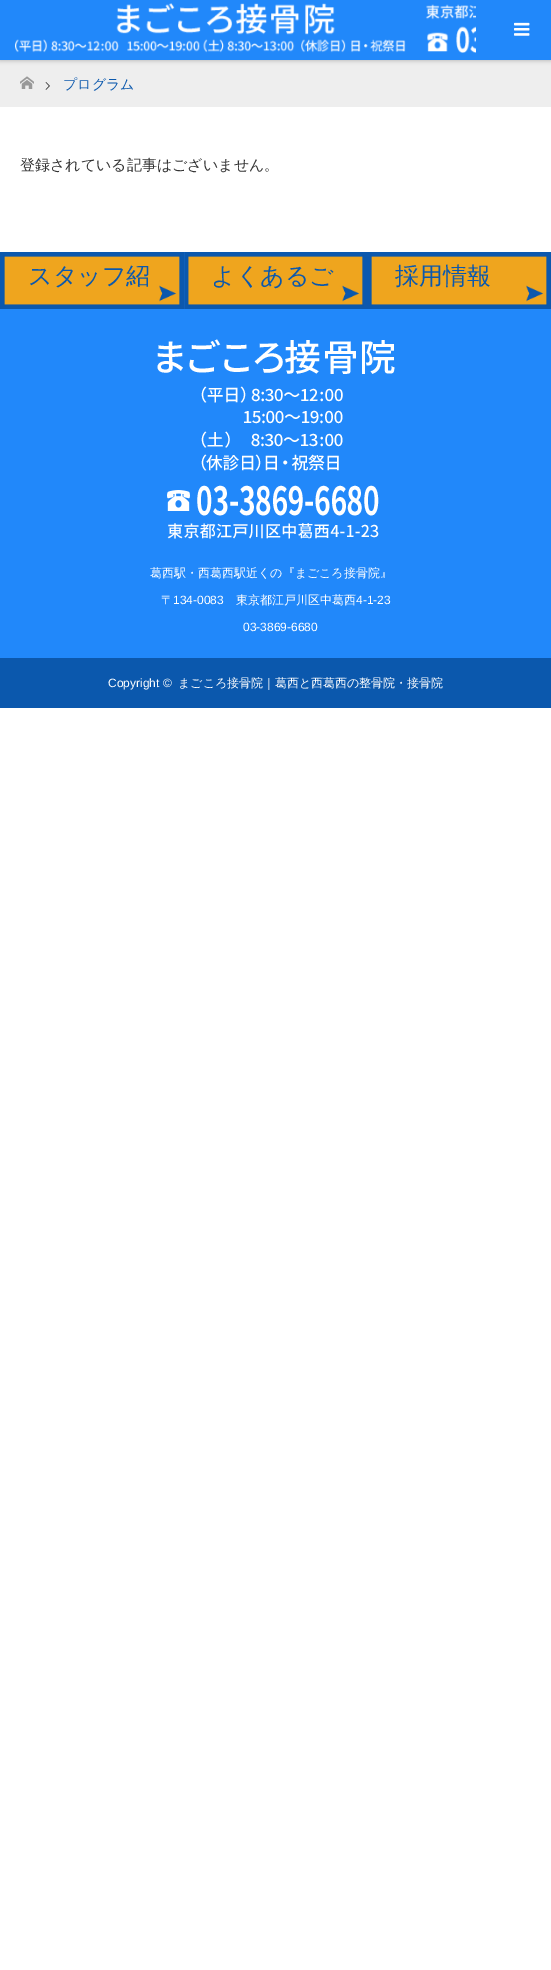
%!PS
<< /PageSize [551 1970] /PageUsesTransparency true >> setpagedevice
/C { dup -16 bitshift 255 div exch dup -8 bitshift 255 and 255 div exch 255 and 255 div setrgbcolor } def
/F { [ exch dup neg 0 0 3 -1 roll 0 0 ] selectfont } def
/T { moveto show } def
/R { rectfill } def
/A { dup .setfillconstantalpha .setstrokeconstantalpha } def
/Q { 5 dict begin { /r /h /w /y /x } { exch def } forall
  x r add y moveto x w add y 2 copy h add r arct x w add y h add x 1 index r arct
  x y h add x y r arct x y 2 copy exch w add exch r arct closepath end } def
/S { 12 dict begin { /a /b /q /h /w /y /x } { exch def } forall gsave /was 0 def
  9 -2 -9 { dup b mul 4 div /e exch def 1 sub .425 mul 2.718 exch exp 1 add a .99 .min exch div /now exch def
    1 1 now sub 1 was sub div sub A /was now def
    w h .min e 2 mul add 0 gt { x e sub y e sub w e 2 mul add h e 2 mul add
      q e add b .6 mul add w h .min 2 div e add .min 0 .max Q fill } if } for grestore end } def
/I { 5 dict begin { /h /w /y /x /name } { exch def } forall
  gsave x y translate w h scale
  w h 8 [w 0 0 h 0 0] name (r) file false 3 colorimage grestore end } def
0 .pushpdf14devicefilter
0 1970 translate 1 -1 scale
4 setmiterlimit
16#FFFFFF C
0 0 551 1970 R
16#EEEEEE C
0 60 551 47 R
16#000000 C
0 1 551 60 0 2 .2 S
16#2188FA C
0 0 551 60 R
(1.rgb) 15 3 461 50 I
(2.rgb) 514 22 16 14 I
(3.rgb) 20 76 14 13 I
(4.rgb) 45 82 5 8 I
/WenQuanYiZenHei-Medium 14 F
16#0B58AD C
(プログラム) 63 89 T
/WenQuanYiZenHei-Medium 15 F
16#333333 C
(登録されている記事はございません。) 20 170 T
(5.rgb) 0 252 184 57 I
/WenQuanYiZenHei-Medium 24 F
16#0B58AD C
(スタッフ紹) 28 284 T
(6.rgb) 184 252 183 57 I
(よくあるご) 211 284 T
(5.rgb) 367 252 184 57 I
(採用情報) 395 284 T
16#2188FA C
0 309 551 349 R
(7.rgb) 157 339 238 200 I
/WenQuanYiZenHei-Medium 12 F
16#FFFFFF C
(葛西駅・西葛西駅近くの『まごころ接骨院』) 150 577 T
(〒) 161 604 T
/LiberationSans-Regular 12 F
(134-0083) 173 604 T
/WenQuanYiZenHei-Medium 12 F
(東京都江戸川区中葛西) 236 604 T
/LiberationSans-Regular 12 F
(4-1-23) 356 604 T
(03-3869-6680) 243 631 T
16#0B58AD C
0 658 551 50 R
16#FFFFFF C
(Copyright ©) 108 687 T
/WenQuanYiZenHei-Medium 12 F
(まごころ接骨院｜葛西と西葛西の整骨院・接骨院) 178 687 T
.poppdf14devicefilter showpage
